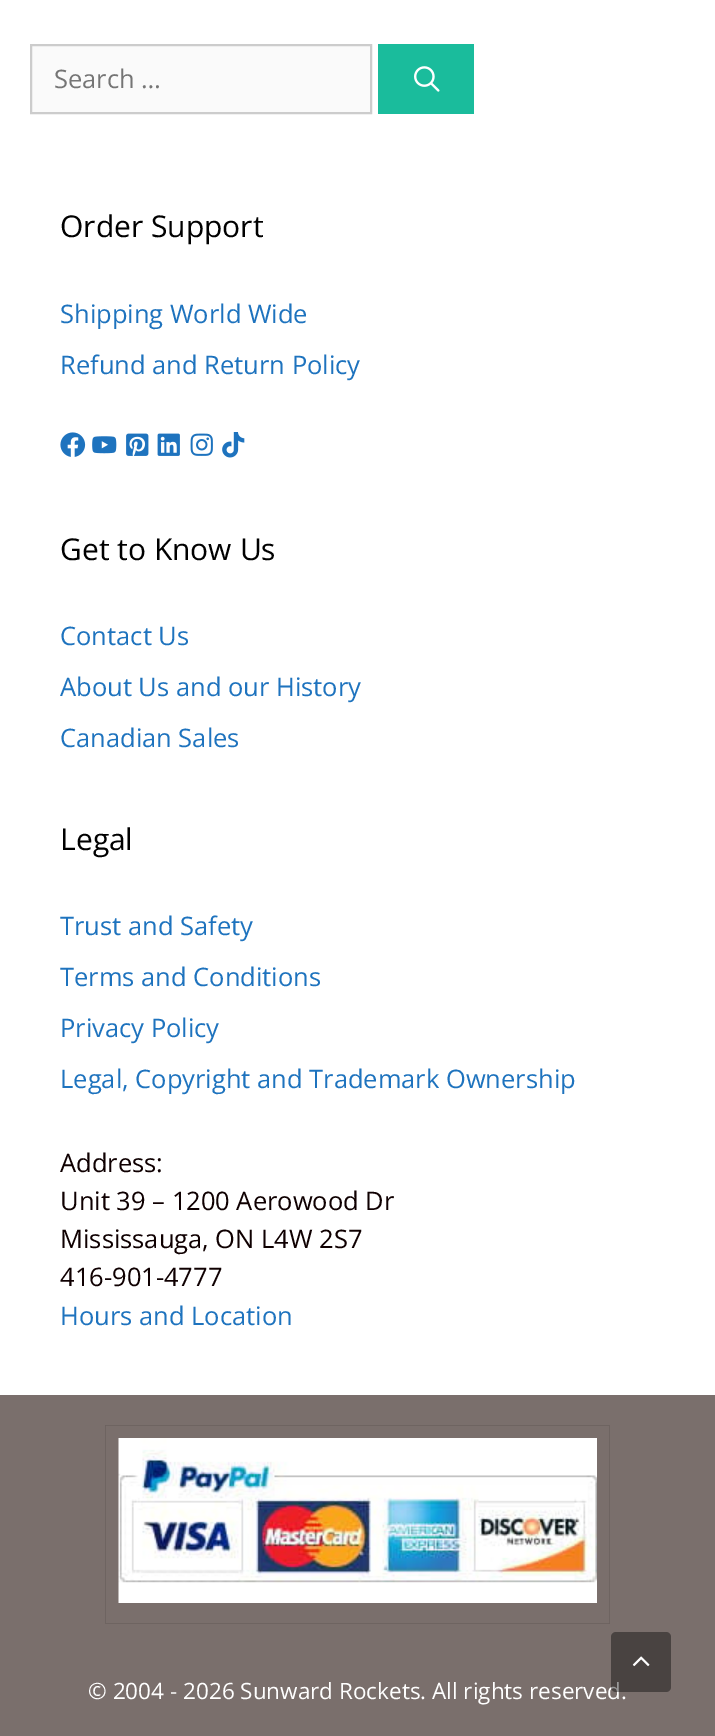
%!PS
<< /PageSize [715 1736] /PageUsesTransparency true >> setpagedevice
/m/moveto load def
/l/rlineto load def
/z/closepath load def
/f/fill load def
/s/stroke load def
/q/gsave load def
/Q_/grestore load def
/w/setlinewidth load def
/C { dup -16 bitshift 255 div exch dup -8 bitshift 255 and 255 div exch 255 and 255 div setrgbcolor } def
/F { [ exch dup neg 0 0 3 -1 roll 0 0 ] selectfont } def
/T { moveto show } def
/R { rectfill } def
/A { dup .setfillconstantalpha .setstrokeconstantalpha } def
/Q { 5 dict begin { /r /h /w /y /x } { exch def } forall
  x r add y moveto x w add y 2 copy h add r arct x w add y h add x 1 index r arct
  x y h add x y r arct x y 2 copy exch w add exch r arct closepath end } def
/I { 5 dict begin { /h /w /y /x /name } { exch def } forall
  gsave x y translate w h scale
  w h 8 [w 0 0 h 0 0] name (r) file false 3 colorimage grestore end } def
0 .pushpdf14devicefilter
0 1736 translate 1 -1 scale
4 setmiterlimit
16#FFFFFF C
0 0 715 1736 R
16#FAFAFA C
31 45 m 340 0 l 0 68 l -340 0 l z q f Q_
16#CCCCCC C
2 w
s
/OpenSans-Regular 25.5 F
16#757575 C
(Search …) 54 88 T
16#1ABC9C C
378 44 96 70 R
(1.rgb) 414 66 26 26 I
/OpenSans-Regular 30 F
16#000000 C
(Order Support) 60 237 T
/OpenSans-Regular 25.5 F
16#1E73BE C
(Shipping World Wide) 60 323 T
(Refund and Return Policy) 60 374 T
(2.rgb) 60 432 26 25 I
(3.rgb) 92 436 25 18 I
(4.rgb) 126 433 23 23 I
(5.rgb) 157 433 23 23 I
(6.rgb) 190 433 23 23 I
(7.rgb) 222 432 23 26 I
/OpenSans-Regular 30 F
16#000000 C
(Get to Know Us) 60 560 T
/OpenSans-Regular 25.5 F
16#1E73BE C
(Contact Us) 60 645 T
(About Us and our History) 60 696 T
(Canadian Sales) 60 747 T
/OpenSans-Regular 30 F
16#000000 C
(Legal) 60 850 T
/OpenSans-Regular 25.5 F
16#1E73BE C
(Trust and Safety) 60 935 T
(Terms and Conditions) 60 986 T
(Privacy Policy) 60 1037 T
(Legal, Copyright and Trademark Ownership) 60 1088 T
16#0F0001 C
(Address:) 60 1172 T
(Unit 39 – 1200 Aerowood Dr) 60 1210 T
(Mississauga, ON L4W 2S7) 60 1248 T
(416-901-4777) 60 1286 T
16#1E73BE C
(Hours and Location) 60 1325 T
16#7A6F6C C
0 1395 715 341 R
16#6E6461 C
105 1425 m 505 0 l 0 1 l -504 0 l z f
0.1 A
16#000000 C
105 1624 m 0 -199 l 1 1 l 0 198 l z f
1 A
16#6E6461 C
610 1426 m 0 198 l -1 -1 l 0 -197 l z f
0.1 A
16#000000 C
610 1624 m -504 0 l 0 -1 l 503 0 l z f
1 A
(8.rgb) 118 1438 479 165 I
/OpenSans-Regular 22.5 F
16#FFFFFF C
(© 2004 - 2026 Sunward Rockets. All rights reserved.) 88 1699 T
0.4 A
16#000000 C
611 1632 60 60 5 Q f
1 A
(9.rgb) 632 1656 18 11 I
.poppdf14devicefilter showpage
